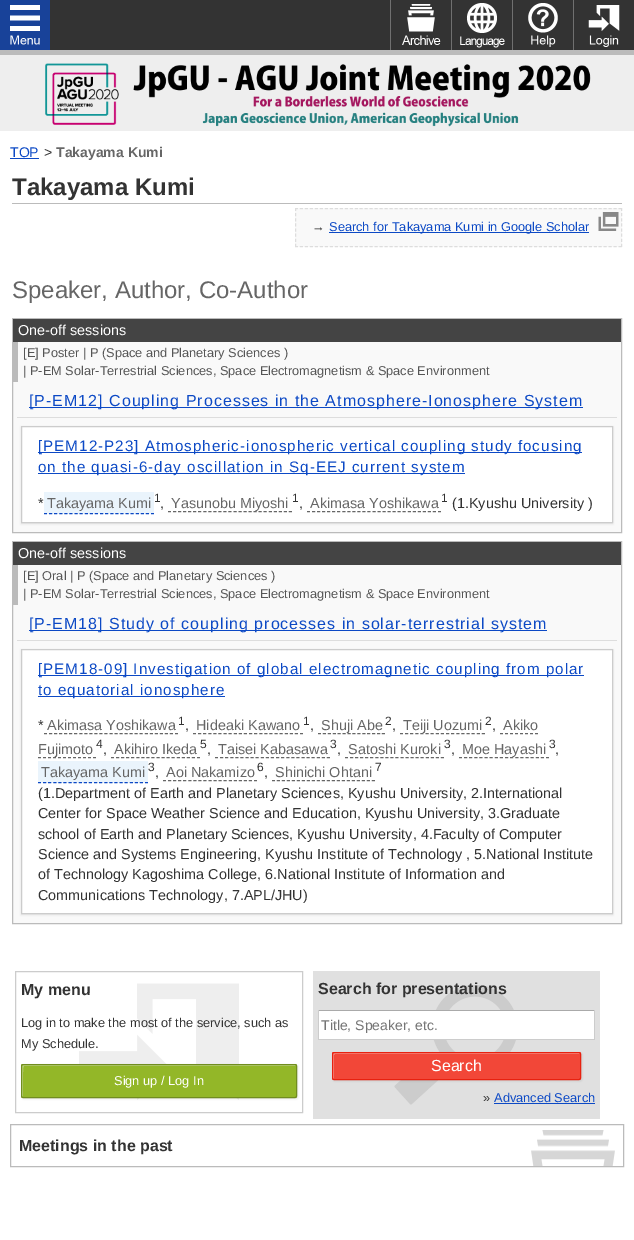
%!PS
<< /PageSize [634 1240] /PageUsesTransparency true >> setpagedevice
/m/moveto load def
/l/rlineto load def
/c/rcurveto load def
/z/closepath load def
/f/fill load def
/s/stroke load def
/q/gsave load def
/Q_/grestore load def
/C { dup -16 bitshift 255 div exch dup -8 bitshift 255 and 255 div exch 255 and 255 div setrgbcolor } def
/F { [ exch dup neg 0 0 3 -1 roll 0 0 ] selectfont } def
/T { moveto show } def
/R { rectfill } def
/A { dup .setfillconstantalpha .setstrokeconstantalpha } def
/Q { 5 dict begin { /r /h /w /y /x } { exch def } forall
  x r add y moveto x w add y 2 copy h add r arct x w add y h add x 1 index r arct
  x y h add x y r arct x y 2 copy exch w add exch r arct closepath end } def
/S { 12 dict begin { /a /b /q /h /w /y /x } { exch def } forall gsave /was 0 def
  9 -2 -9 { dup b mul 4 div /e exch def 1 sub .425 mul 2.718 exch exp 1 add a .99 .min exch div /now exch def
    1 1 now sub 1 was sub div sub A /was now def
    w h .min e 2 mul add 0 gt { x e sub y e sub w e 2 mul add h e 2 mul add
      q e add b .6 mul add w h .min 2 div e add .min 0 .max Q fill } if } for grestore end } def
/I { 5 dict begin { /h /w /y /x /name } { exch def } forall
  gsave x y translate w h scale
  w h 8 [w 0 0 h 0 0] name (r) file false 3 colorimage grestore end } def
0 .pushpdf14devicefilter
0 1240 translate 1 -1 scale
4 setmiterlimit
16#EEEEEE C
0 0 634 1240 R
16#333333 C
50 0 584 50 R
16#BBBBBB C
0 50 634 5 R
16#184299 C
0 0 50 50 R
(1.rgb) 10 5 30 40 I
16#707070 C
390 0 1 50 R
(2.rgb) 402 4 39 41 I
451 0 1 50 R
(3.rgb) 460 3 45 45 I
512 0 1 50 R
(4.rgb) 528 3 30 44 I
573 0 1 50 R
(5.rgb) 588 5 32 42 I
(6.rgb) 45 63 546 64 I
16#FFFFFF C
0 131 634 1109 R
/LiberationSans-Regular 14 F
16#0C49C5 C
(TOP) 10 157 T
10 158 29 1 R
16#333333 C
(>) 44 157 T
/LiberationSans-Bold 14 F
16#666666 C
(Takayama Kumi) 56 157 T
16#BBBBBB C
12 203 610 1 R
/LiberationSans-Bold 24 F
16#333333 C
(Takayama Kumi) 12 195 T
16#F9F9F9 C
295 208 327 39 R
16#DDDDDD C
[3 1.98] 0 setdash
295 208.5 m 327 0 l s
[3 2.14] 0 setdash
621.5 208 m 0 39 l s
[3 1.98] 0 setdash
295 246.5 m 327 0 l s
[3 2.14] 0 setdash
295.5 208 m 0 39 l s
/LiberationSans-Regular 12.8 F
16#333333 C
(→) 312 231 T
16#0C49C5 C
329 232 260 1 R
(Search for Takayama Kumi in Google Scholar) 329 231 T
(7.rgb) 598 212 21 19 I
/LiberationSans-Regular 24 F
16#666666 C
(Speaker, Author, Co-Author) 12 298 T
16#F9F9F9 C
13 342 608 190 R
16#BBBBBB C
[] 0 setdash
12.5 318.5 609 214 rectstroke
16#444444 C
13 319 608 23 R
/LiberationSans-Regular 14.4 F
16#FFFFFF C
(One-off sessions) 18 335 T
16#BBBBBB C
13 342 5 40 R
/LiberationSans-Regular 12.8 F
16#555555 C
([E] Poster | P \(Space and Planetary Sciences \)) 23 357 T
(| P-EM Solar-Terrestrial Sciences, Space Electromagnetism & Space Environment) 23 375 T
16#DDDDDD C
17 417 600 1 R
16#0C49C5 C
29 407 554 1 R
/LiberationSans-Regular 16 F
29 406 m 1 0 ([P-EM12] Coupling Processes in the Atmosphere-Ionosphere System) ashow
16#000000 C
21 427 592 97 0 1 .1 S
16#FFFFFF C
21.5 426.5 m 591 0 l 0 96 l -591 0 l z q f Q_
16#CCCCCC C
s
16#0C49C5 C
38 452 544 1 R
/LiberationSans-Regular 15.2 F
38 451 m 1 0 ([PEM12-P23] Atmospheric-ionospheric vertical coupling study focusing) ashow
38 473 427 1 R
38 472 m 1 0 (on the quasi-6-day oscillation in Sq-EEJ current system) ashow
/LiberationSans-Regular 14.4 F
16#333333 C
(*) 38 508 T
16#EAF4FC C
44 492 110 22 R
16#0C49C5 C
[3 2.1] 0 setdash
44 513.5 m 110 0 l s
16#666666 C
(Takayama Kumi) 47 508 T
/LiberationSans-Regular 12 F
16#333333 C
(1) 154 502 T
/LiberationSans-Regular 14.4 F
16#666666 C
(Yasunobu Miyoshi) 171 508 T
[3 2.04] 0 setdash
168 511.5 m 124 0 l s
/LiberationSans-Regular 12 F
16#333333 C
(1) 292 502 T
/LiberationSans-Regular 14.4 F
16#666666 C
(Akimasa Yoshikawa) 310 508 T
307 511.5 m 134 0 l s
/LiberationSans-Regular 12 F
16#333333 C
(1) 441 502 T
/LiberationSans-Regular 14.4 F
(\(1.Kyushu University \)) 452 508 T
(,) 160 508 T
(,) 299 508 T
16#F9F9F9 C
13 565 608 358 R
16#BBBBBB C
[] 0 setdash
12.5 541.5 609 382 rectstroke
16#444444 C
13 542 608 23 R
16#FFFFFF C
(One-off sessions) 18 558 T
16#BBBBBB C
13 565 5 40 R
/LiberationSans-Regular 12.8 F
16#555555 C
([E] Oral | P \(Space and Planetary Sciences \)) 23 580 T
(| P-EM Solar-Terrestrial Sciences, Space Electromagnetism & Space Environment) 23 598 T
16#DDDDDD C
17 640 600 1 R
16#0C49C5 C
29 630 518 1 R
/LiberationSans-Regular 16 F
29 629 m 1 0 ([P-EM18] Study of coupling processes in solar-terrestrial system) ashow
16#000000 C
21 650 592 265 0 1 .1 S
16#FFFFFF C
21.5 649.5 m 591 0 l 0 264 l -591 0 l z q f Q_
16#CCCCCC C
s
16#0C49C5 C
38 675 546 1 R
/LiberationSans-Regular 15.2 F
38 674 m 1 0 ([PEM18-09] Investigation of global electromagnetic coupling from polar) ashow
38 696 187 1 R
38 695 m 1 0 (to equatorial ionosphere) ashow
/LiberationSans-Regular 14.4 F
16#333333 C
(*) 38 730 T
16#666666 C
(Akimasa Yoshikawa) 47 730 T
[3 2.04] 0 setdash
44 733.5 m 134 0 l s
/LiberationSans-Regular 12 F
16#333333 C
(1) 178 725 T
/LiberationSans-Regular 14.4 F
16#666666 C
(Hideaki Kawano) 196 730 T
[3 2.1] 0 setdash
193 733.5 m 110 0 l s
/LiberationSans-Regular 12 F
16#333333 C
(1) 303 725 T
/LiberationSans-Regular 14.4 F
16#666666 C
(Shuji Abe) 321 730 T
[3 1.92] 0 setdash
318 733.5 m 67 0 l s
/LiberationSans-Regular 12 F
16#333333 C
(2) 385 725 T
/LiberationSans-Regular 14.4 F
16#666666 C
(Teiji Uozumi) 403 730 T
[3 2.12] 0 setdash
400 733.5 m 85 0 l s
/LiberationSans-Regular 12 F
16#333333 C
(2) 485 725 T
/LiberationSans-Regular 14.4 F
16#666666 C
(Akiko) 503 730 T
[3 2] 0 setdash
500 733.5 m 38 0 l s
16#333333 C
(,) 185 730 T
(,) 310 730 T
(,) 392 730 T
(,) 492 730 T
16#666666 C
(Fujimoto) 38 754 T
38 757.5 m 58 0 l s
/LiberationSans-Regular 12 F
16#333333 C
(4) 96 748 T
/LiberationSans-Regular 14.4 F
(,) 103 754 T
16#666666 C
(Akihiro Ikeda) 114 754 T
[3 2.06] 0 setdash
111 757.5 m 89 0 l s
/LiberationSans-Regular 12 F
16#333333 C
(5) 200 748 T
/LiberationSans-Regular 14.4 F
(,) 207 754 T
16#666666 C
(Taisei Kabasawa) 218 754 T
[3 2.09] 0 setdash
215 757.5 m 115 0 l s
/LiberationSans-Regular 12 F
16#333333 C
(3) 330 748 T
/LiberationSans-Regular 14.4 F
(,) 337 754 T
16#666666 C
(Satoshi Kuroki) 348 754 T
[3 2.05] 0 setdash
345 757.5 m 99 0 l s
/LiberationSans-Regular 12 F
16#333333 C
(3) 444 748 T
/LiberationSans-Regular 14.4 F
(,) 451 754 T
16#666666 C
(Moe Hayashi) 462 754 T
[3 2.12] 0 setdash
459 757.5 m 90 0 l s
/LiberationSans-Regular 12 F
16#333333 C
(3) 549 748 T
/LiberationSans-Regular 14.4 F
(,) 555 754 T
16#EAF4FC C
38 761 110 22 R
16#0C49C5 C
[3 2.1] 0 setdash
38 782.5 m 110 0 l s
16#666666 C
(Takayama Kumi) 41 777 T
/LiberationSans-Regular 12 F
16#333333 C
(3) 148 771 T
/LiberationSans-Regular 14.4 F
(,) 155 777 T
16#666666 C
(Aoi Nakamizo) 166 777 T
[3 2.06] 0 setdash
163 780.5 m 94 0 l s
/LiberationSans-Regular 12 F
16#333333 C
(6) 257 771 T
/LiberationSans-Regular 14.4 F
(,) 264 777 T
16#666666 C
(Shinichi Ohtani) 275 777 T
[3 2] 0 setdash
272 780.5 m 103 0 l s
/LiberationSans-Regular 12 F
16#333333 C
(7) 375 771 T
/LiberationSans-Regular 14.4 F
(\(1.Department of Earth and Planetary Sciences, Kyushu University, 2.International) 38 798 T
(Center for Space Weather Science and Education, Kyushu University, 3.Graduate) 38 818 T
(school of Earth and Planetary Sciences, Kyushu University, 4.Faculty of Computer) 38 839 T
(Science and Systems Engineering, Kyushu Institute of Technology , 5.National Institute) 38 859 T
(of Technology Kagoshima College, 6.National Institute of Information and) 38 879 T
(Communications Technology, 7.APL/JHU\)) 38 900 T
(8.rgb) 79 983 160 117 I
16#CCCCCC C
[] 0 setdash
15.5 971.5 287 141 rectstroke
/LiberationSans-Bold 16 F
16#333333 C
(My menu) 21 995 T
/LiberationSans-Regular 12.8 F
(Log in to make the most of the service, such as) 21 1027 T
(My Schedule.) 21 1048 T
16#000000 C
22 1065 276 34 2 1 .1 S
16#93B728 C
21 1064 276 34 2 Q f
16#BED47E C
24 1066 m 272 0 l -1 -1 l -272 0 l -1 1 l 0 30 l 1 1 l 0 -25 l 0 -1 0 -6 1 -6 c z f
16#718D1F C
21.5 1064.5 275 33 1.5 Q s
16#FFFFFF C
(Sign up / Log In) 114 1085 T
16#E0E0E0 C
313 971 287 148 R
(9.rgb) 394 985 122 120 I
/LiberationSans-Bold 16 F
16#333333 C
(Search for presentations) 318 994 T
16#FFFFFF C
319 1011 275 28 R
16#AAAAAA C
318 1010 277 1 R
16#CCCCCC C
594 1010 1 30 R
318 1039 277 1 R
318 1010 1 30 R
/LiberationSans-Regular 14 F
16#757575 C
(Title, Speaker, etc.) 321 1030 T
16#000000 C
333 1053 249 28 2 1 .1 S
16#F24738 C
332 1052 249 28 2 Q f
16#F79188 C
335 1054 m 245 0 l -1 -1 l -245 0 l -1 1 l 0 15 -1 25 1 25 c 0 -24 l z f
16#E8210F C
332.5 1052.5 248 27 1.5 Q s
/LiberationSans-Regular 16 F
16#FFFFFF C
(Search) 431 1071 T
/LiberationSans-Regular 12.8 F
16#333333 C
(») 483 1102 T
16#0C49C5 C
(Advanced Search) 494 1102 T
494 1103 101 1 R
(10.rgb) 531 1130 84 36 I
16#BBBBBB C
10.5 1124.5 613 42 rectstroke
/LiberationSans-Bold 16 F
16#333333 C
(Meetings in the past) 19 1151 T
.poppdf14devicefilter showpage
